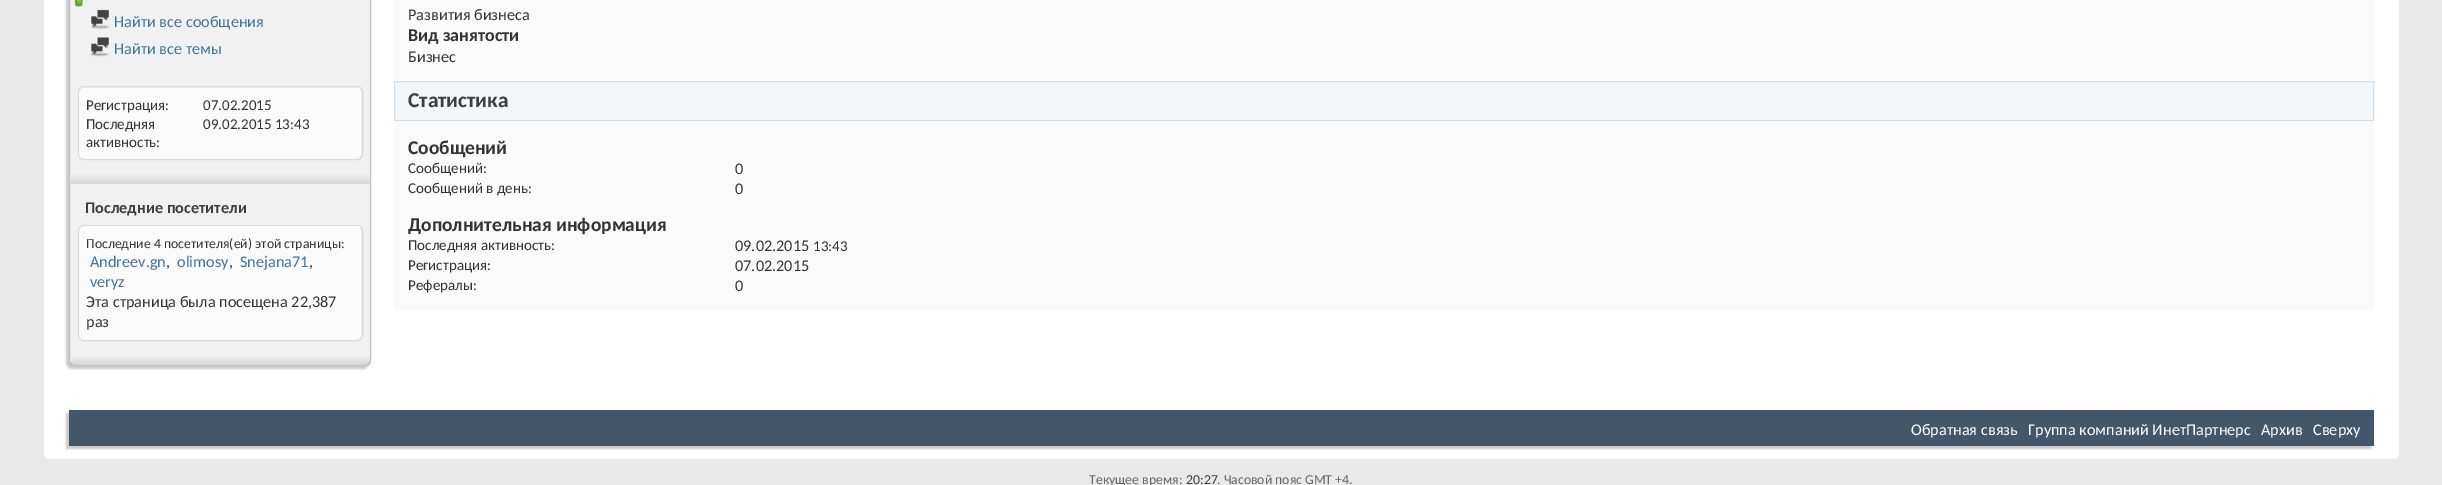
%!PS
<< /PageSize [2442 485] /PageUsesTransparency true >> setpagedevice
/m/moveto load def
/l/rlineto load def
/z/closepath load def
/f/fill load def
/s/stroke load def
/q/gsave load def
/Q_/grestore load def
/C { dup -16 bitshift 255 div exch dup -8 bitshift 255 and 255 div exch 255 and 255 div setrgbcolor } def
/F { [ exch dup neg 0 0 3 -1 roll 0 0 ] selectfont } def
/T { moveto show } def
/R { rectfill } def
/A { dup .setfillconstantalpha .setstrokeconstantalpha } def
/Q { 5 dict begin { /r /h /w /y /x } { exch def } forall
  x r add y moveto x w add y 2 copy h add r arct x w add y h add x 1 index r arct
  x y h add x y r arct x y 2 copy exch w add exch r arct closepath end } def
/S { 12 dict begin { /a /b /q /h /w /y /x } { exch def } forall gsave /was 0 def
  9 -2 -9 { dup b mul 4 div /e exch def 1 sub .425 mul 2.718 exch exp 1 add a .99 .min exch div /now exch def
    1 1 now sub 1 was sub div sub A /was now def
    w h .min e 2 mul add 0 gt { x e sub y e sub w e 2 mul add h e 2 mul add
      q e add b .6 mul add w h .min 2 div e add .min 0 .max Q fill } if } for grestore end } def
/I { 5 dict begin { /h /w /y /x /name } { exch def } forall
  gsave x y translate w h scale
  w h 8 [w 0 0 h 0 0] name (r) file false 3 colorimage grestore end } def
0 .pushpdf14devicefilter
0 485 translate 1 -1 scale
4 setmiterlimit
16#E9E9E9 C
0 0 2442 485 R
16#FFFFFF C
44 -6 2355 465 6 Q f
16#C8C8C8 C
66 -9 303 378 6 1 1 S
16#F1F1F1 C
69.5 -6.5 301 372 5.5 Q q f Q_
16#C1C1C1 C
s
(1.rgb) 74 0 9 7 I
(2.rgb) 91 9 18 20 I
/Carlito-Regular 16.25 F
16#417394 C
(Найти все сообщения) 114 27 T
(3.rgb) 90 37 19 20 I
(Найти все темы) 114 54 T
16#DADADA C
78.5 86.5 284 73 5.5 Q s
16#FAFAFA C
79 88 282 71 6 Q f
357 88 2 1 R
/Carlito-Regular 15 F
16#333333 C
(Регистрация:) 86 110 T
(07.02.2015) 203 110 T
(Последняя) 86 129 T
(активность:) 86 147 T
(09.02.2015 13:43) 203 129 T
(4.rgb) 70 175 300 9 I
/Carlito-Bold 16.25 F
16#3E3E3E C
(Последние посетители) 85 213 T
16#DADADA C
78.5 225.5 284 115 5.5 Q s
16#FAFAFA C
79 226 282 114 6 Q f
357 226 2 1 R
/Carlito-Regular 13.75 F
16#333333 C
(Последние 4 посетителя\(ей\) этой страницы:) 86 248 T
/Carlito-Regular 16.25 F
16#417394 C
(Andreev.gn) 90 267 T
16#333333 C
(,) 166 267 T
16#417394 C
(olimosy) 177 267 T
16#333333 C
(,) 229 267 T
16#417394 C
(Snejana71) 240 267 T
16#333333 C
(,) 309 267 T
16#417394 C
(veryz) 90 287 T
16#333333 C
(Эта страница была посещена 22,387) 86 307 T
(раз) 86 327 T
(5.rgb) 70 357 300 8 I
16#FAFAFA C
394 0 1980 81 R
16#333333 C
(Развития бизнеса) 408 20 T
/Carlito-Bold 18 F
(Вид занятости) 408 41 T
/Carlito-Regular 16.25 F
(Бизнес) 408 62 T
16#F2F6F8 C
394.5 81.5 m 1979 0 l 0 39 l -1979 0 l z q f Q_
16#CEDFEB C
s
/Carlito-Bold 21.25 F
16#3E3E3E C
(Статистика) 408 107 T
16#FAFAFA C
394 121 1980 189 R
/Carlito-Bold 19.5 F
16#333333 C
(Сообщений) 408 154 T
/Carlito-Regular 15 F
(Сообщений:) 408 173 T
/Carlito-Regular 16.25 F
(0) 735 174 T
/Carlito-Regular 15 F
(Сообщений в день:) 408 193 T
/Carlito-Regular 16.25 F
(0) 735 194 T
/Carlito-Bold 19.5 F
(Дополнительная информация) 408 231 T
/Carlito-Regular 15 F
(Последняя активность:) 408 250 T
/Carlito-Regular 16.25 F
(09.02.2015) 735 251 T
/Carlito-Regular 15 F
(13:43) 813 251 T
(Регистрация:) 408 270 T
/Carlito-Regular 16.25 F
(07.02.2015) 735 271 T
/Carlito-Regular 15 F
(Рефералы:) 408 290 T
/Carlito-Regular 16.25 F
(0) 735 291 T
16#C8C8C8 C
66 413 2305 36 0 1 1 S
16#425769 C
69 410 2305 36 R
16#FFFFFF C
(Обратная связь) 1911 435 T
(Группа компаний ИнетПартнерс) 2028 435 T
(Архив) 2261 435 T
(Сверху) 2313 435 T
/Carlito-Regular 13.75 F
16#666666 C
(Текущее время:) 1089 484 T
16#3E3E3E C
(20:27) 1186 484 T
16#666666 C
(. Часовой пояс GMT +4.) 1217 484 T
.poppdf14devicefilter showpage
